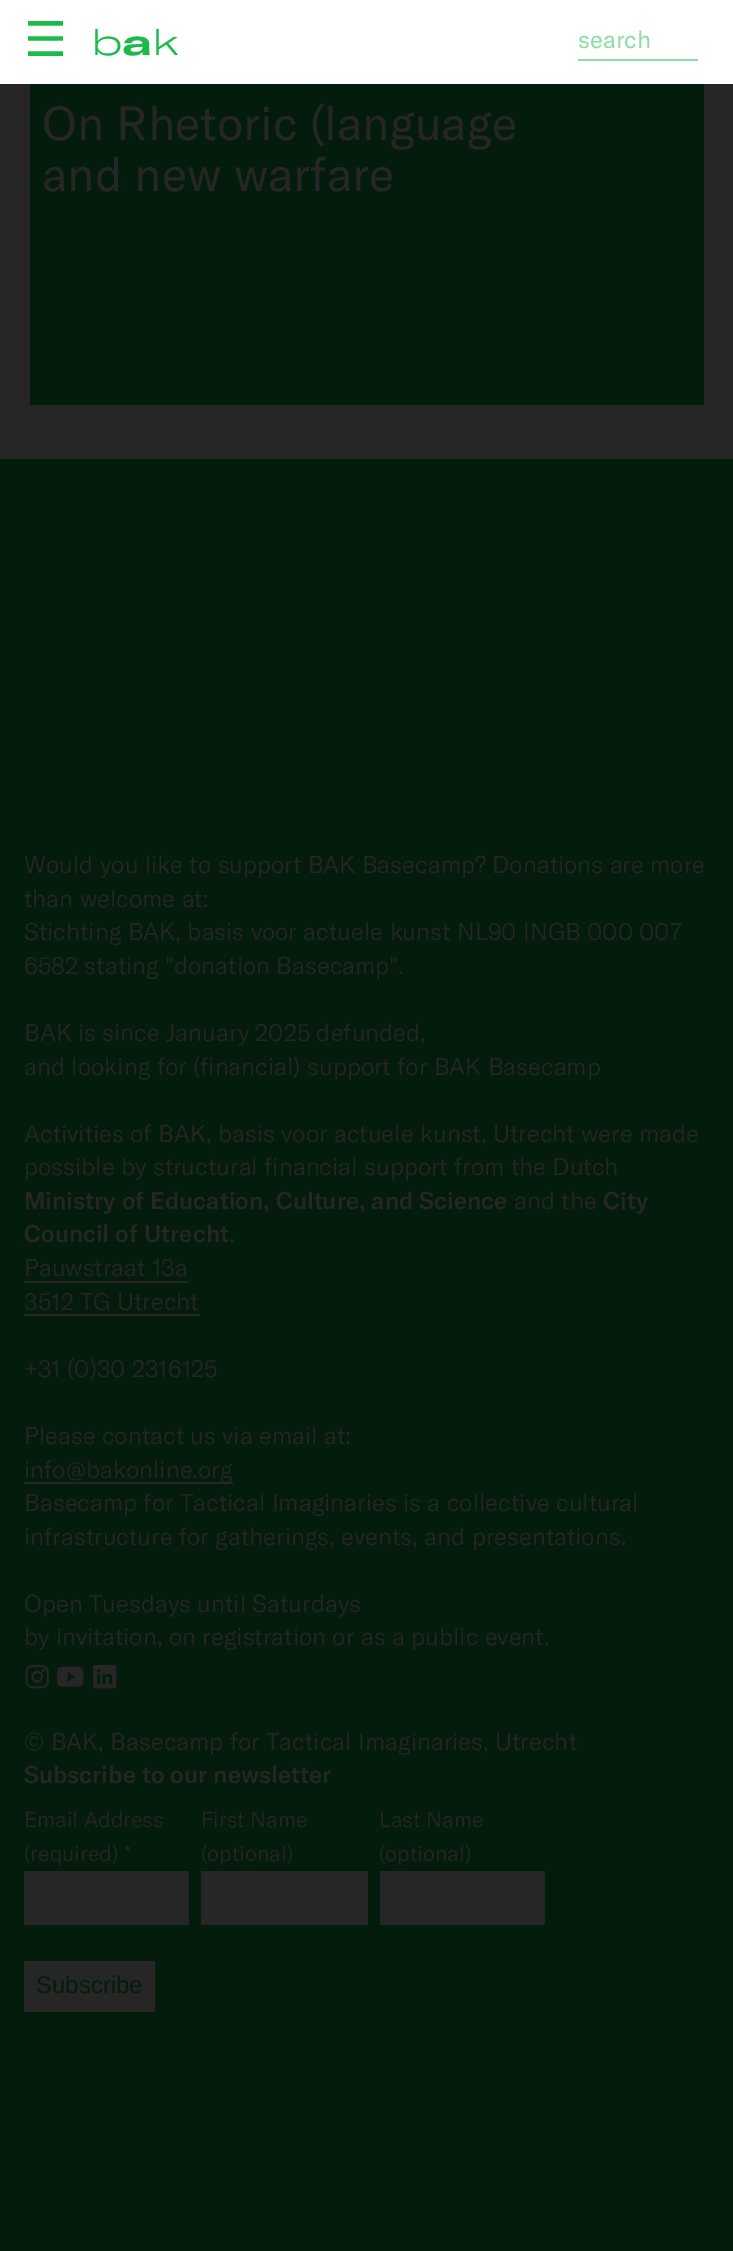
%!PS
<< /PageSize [733 2251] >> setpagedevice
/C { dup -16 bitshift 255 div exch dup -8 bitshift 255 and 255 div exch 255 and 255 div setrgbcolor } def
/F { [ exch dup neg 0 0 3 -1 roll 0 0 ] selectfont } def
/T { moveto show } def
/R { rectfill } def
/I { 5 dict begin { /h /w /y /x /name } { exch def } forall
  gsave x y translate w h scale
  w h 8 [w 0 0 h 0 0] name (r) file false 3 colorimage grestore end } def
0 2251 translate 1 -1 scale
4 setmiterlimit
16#041C0B C
0 0 733 2251 R
16#FFFFFF C
0 0 733 84 R
/DejaVuSans-Regular 48 F
16#1BBB4B C
(☰) 24 56 T
/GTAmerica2-Light 36 F
(b) 91 55 T
/GTAmerica-Bold 36 F
(a) 122 55 T
/GTAmerica2-Light 36 F
(k) 152 55 T
16#8DDDA5 C
578 59 120 2 R
/GTAmerica-Regular 24 F
(search) 578 48 T
16#262626 C
0 84 733 375 R
16#041C0B C
30 84 674 321 R
/GTAmerica-Regular 47.1 F
16#262626 C
(On Rhetoric \(language) 42 140 T
(and new warfare) 42 191 T
/GTAmerica-Light 24 F
(Would you like to support BAK Basecamp? Donations are more) 24 873 T
(than welcome at:) 24 907 T
(Stichting BAK, basis voor actuele kunst NL90 INGB 000 007) 24 940 T
(6582 stating "donation Basecamp".) 24 974 T
(BAK is since January 2025 defunded,) 24 1041 T
(and looking for \(financial\) support for BAK Basecamp) 24 1075 T
(Activities of BAK, basis voor actuele kunst, Utrecht were made) 24 1142 T
(possible by structural financial support from the Dutch) 24 1175 T
/GTAmerica-Medium 24 F
(Ministry of Education, Culture, and Science) 24 1209 T
/GTAmerica-Light 24 F
(and the) 514 1209 T
/GTAmerica-Medium 24 F
(City) 603 1209 T
(Council of Utrecht) 24 1242 T
/GTAmerica-Light 24 F
(.) 229 1242 T
(Pauwstraat 13a) 24 1276 T
24 1281 164 2 R
(3512 TG Utrecht) 24 1310 T
24 1314 176 2 R
(+31 \(0\)30 2316125) 24 1377 T
(Please contact us via email at:) 24 1444 T
24 1482 209 2 R
(info@bakonline.org) 24 1478 T
(Basecamp for Tactical Imaginaries is a collective cultural) 24 1511 T
(infrastructure for gatherings, events, and presentations.) 24 1545 T
(Open Tuesdays until Saturdays) 24 1612 T
(by invitation, on registration or as a public event.) 24 1645 T
(1.rgb) 25 1665 24 24 I
(2.rgb) 57 1666 27 21 I
(3.rgb) 93 1665 24 24 I
(© BAK, Basecamp for Tactical Imaginaries, Utrecht) 24 1750 T
/GTAmerica-Medium 24 F
(Subscribe to our newsletter) 24 1783 T
/GTAmerica-Light 21.5 F
(Email Address) 24 1827 T
(\(required\) *) 24 1861 T
24 1871 165 54 R
(First Name) 201 1827 T
(\(optional\)) 201 1861 T
201 1871 167 54 R
(Last Name) 379 1827 T
(\(optional\)) 379 1861 T
380 1871 165 54 R
24 1961 131 51 R
/LiberationSans-Regular 24 F
16#041C0B C
(Subscribe) 36 1993 T
showpage
